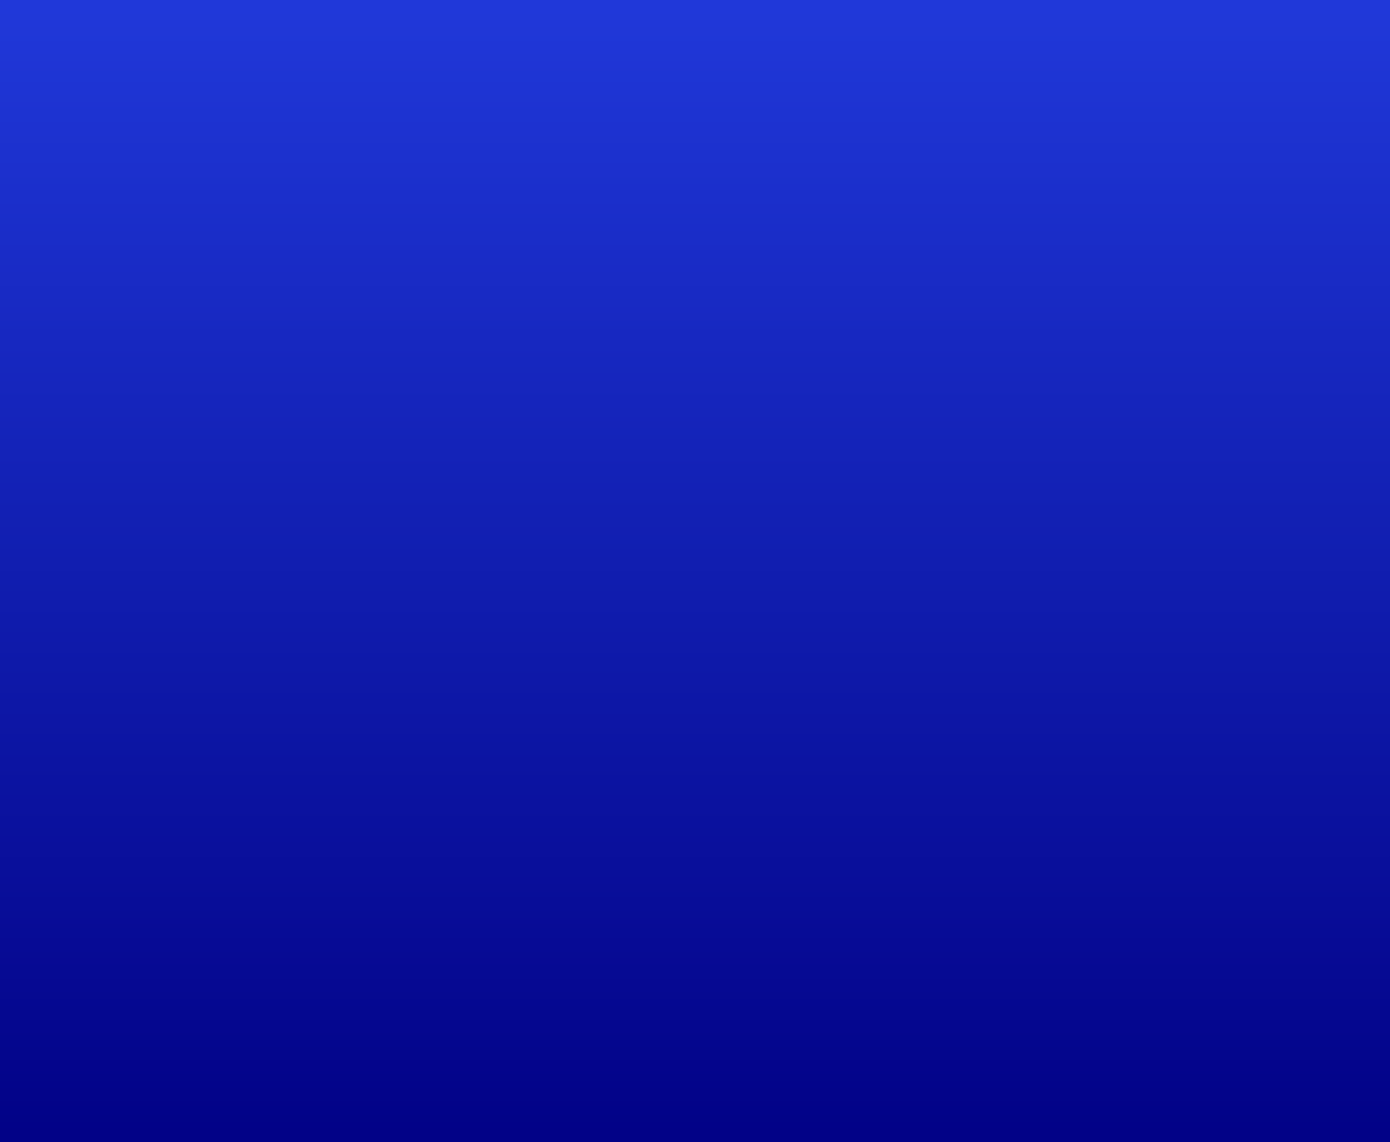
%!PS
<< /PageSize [1390 1142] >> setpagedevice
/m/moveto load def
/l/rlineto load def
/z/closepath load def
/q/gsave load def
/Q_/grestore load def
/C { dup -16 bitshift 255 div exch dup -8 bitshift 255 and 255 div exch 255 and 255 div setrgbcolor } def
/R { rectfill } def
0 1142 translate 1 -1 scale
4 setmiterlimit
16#FFFFFF C
0 0 1390 1142 R
q 0 0 m 1390 0 l 0 1142 l -1390 0 l z clip newpath
<< /ShadingType 2 /ColorSpace /DeviceRGB /Coords [695 0 695 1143] /Extend [true true] /Function << /FunctionType 2 /Domain [0 1] /C0 [.129 .224 .855] /C1 [.008 .008 .529] /N 1 >> >> shfill Q_
showpage
